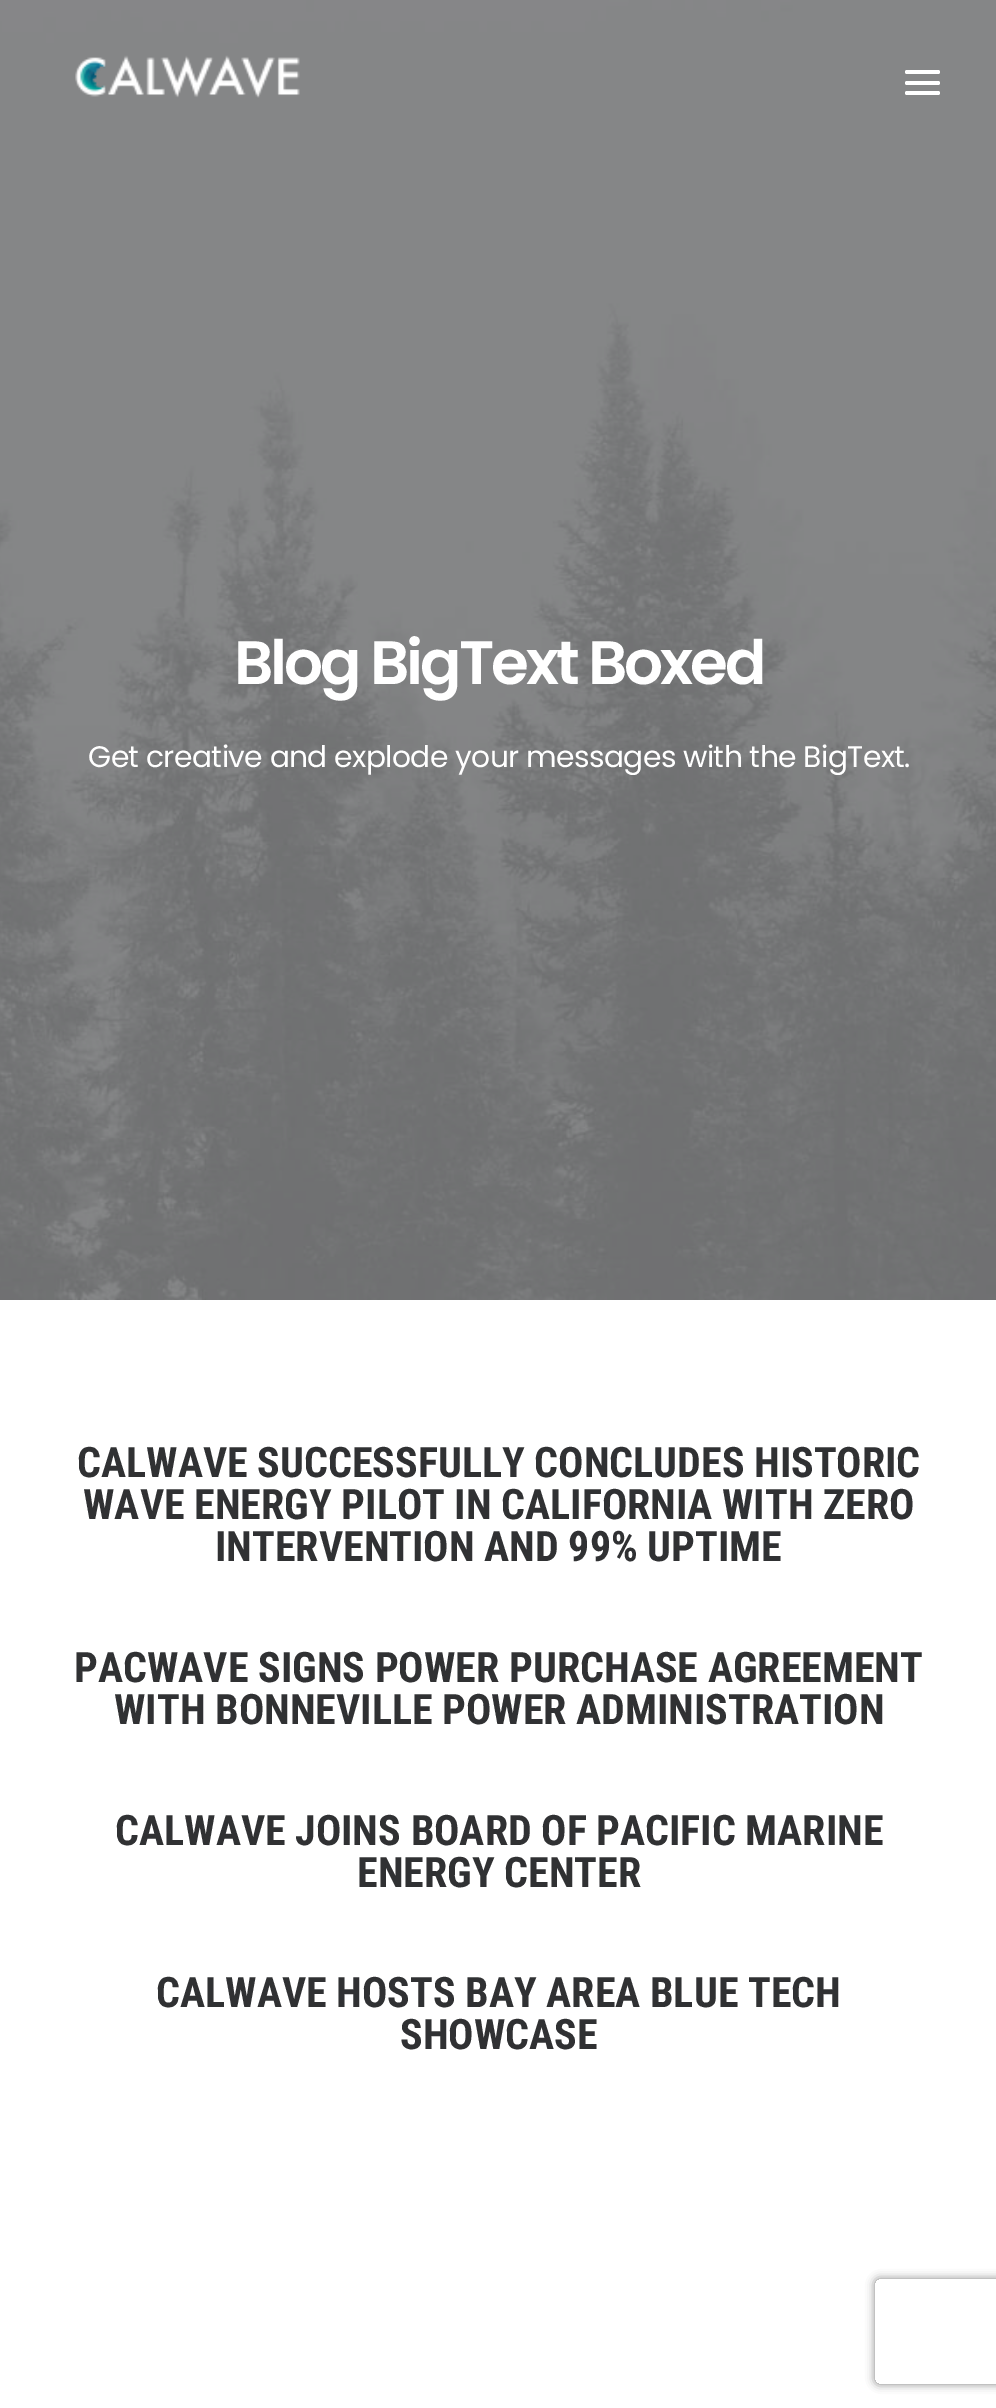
%!PS
<< /PageSize [996 2408] /PageUsesTransparency true >> setpagedevice
/m/moveto load def
/l/rlineto load def
/c/rcurveto load def
/z/closepath load def
/f/fill load def
/q/gsave load def
/Q_/grestore load def
/C { dup -16 bitshift 255 div exch dup -8 bitshift 255 and 255 div exch 255 and 255 div setrgbcolor } def
/F { [ exch dup neg 0 0 3 -1 roll 0 0 ] selectfont } def
/T { moveto show } def
/R { rectfill } def
/A { dup .setfillconstantalpha .setstrokeconstantalpha } def
/Q { 5 dict begin { /r /h /w /y /x } { exch def } forall
  x r add y moveto x w add y 2 copy h add r arct x w add y h add x 1 index r arct
  x y h add x y r arct x y 2 copy exch w add exch r arct closepath end } def
/S { 12 dict begin { /a /b /q /h /w /y /x } { exch def } forall gsave /was 0 def
  9 -2 -9 { dup b mul 4 div /e exch def 1 sub .425 mul 2.718 exch exp 1 add a .99 .min exch div /now exch def
    1 1 now sub 1 was sub div sub A /was now def
    w h .min e 2 mul add 0 gt { x e sub y e sub w e 2 mul add h e 2 mul add
      q e add b .6 mul add w h .min 2 div e add .min 0 .max Q fill } if } for grestore end } def
/I { 5 dict begin { /h /w /y /x /name } { exch def } forall
  gsave x y translate w h scale
  w h 8 [w 0 0 h 0 0] name (r) file false 3 colorimage grestore end } def
0 .pushpdf14devicefilter
0 2408 translate 1 -1 scale
4 setmiterlimit
16#FFFFFF C
0 0 996 2408 R
(2.rgb) 0 0 996 1300 I
(1.rgb) 75 55 225 43 I
905 81 35 4 2 Q f
905 70 35 4 2 Q f
905 91 35 4 2 Q f
/Poppins-SemiBold 61.25 F
234 684 m -3.1 0 (Blog BigText Boxed) ashow
/Poppins-Regular 29.75 F
88 767 m -.6 0 (Get creative and explode your messages with the BigText.) ashow
/RobotoCondensed-Bold 42 F
16#303133 C
(CALWAVE SUCCESSFULLY CONCLUDES HISTORIC) 77 1477 T
(WAVE ENERGY PILOT IN CALIFORNIA WITH ZERO) 83 1519 T
(INTERVENTION AND 99% UPTIME) 215 1561 T
(PACWAVE SIGNS POWER PURCHASE AGREEMENT) 74 1682 T
(WITH BONNEVILLE POWER ADMINISTRATION) 114 1724 T
(CALWAVE JOINS BOARD OF PACIFIC MARINE) 115 1845 T
(ENERGY CENTER) 357 1887 T
(CALWAVE HOSTS BAY AREA BLUE TECH) 156 2007 T
(SHOWCASE) 400 2049 T
q
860 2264 m 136 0 l 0 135 l -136 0 l z 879 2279 m 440 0 l 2 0 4 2 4 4 c 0 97 l 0 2 -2 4 -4 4 c -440 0 l -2 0 -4 -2 -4 -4 c 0 -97 l 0 -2 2 -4 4 -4 c z eoclip newpath
16#808080 C
875 2279 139 105 4 4.5 1 S
Q_
.poppdf14devicefilter showpage
